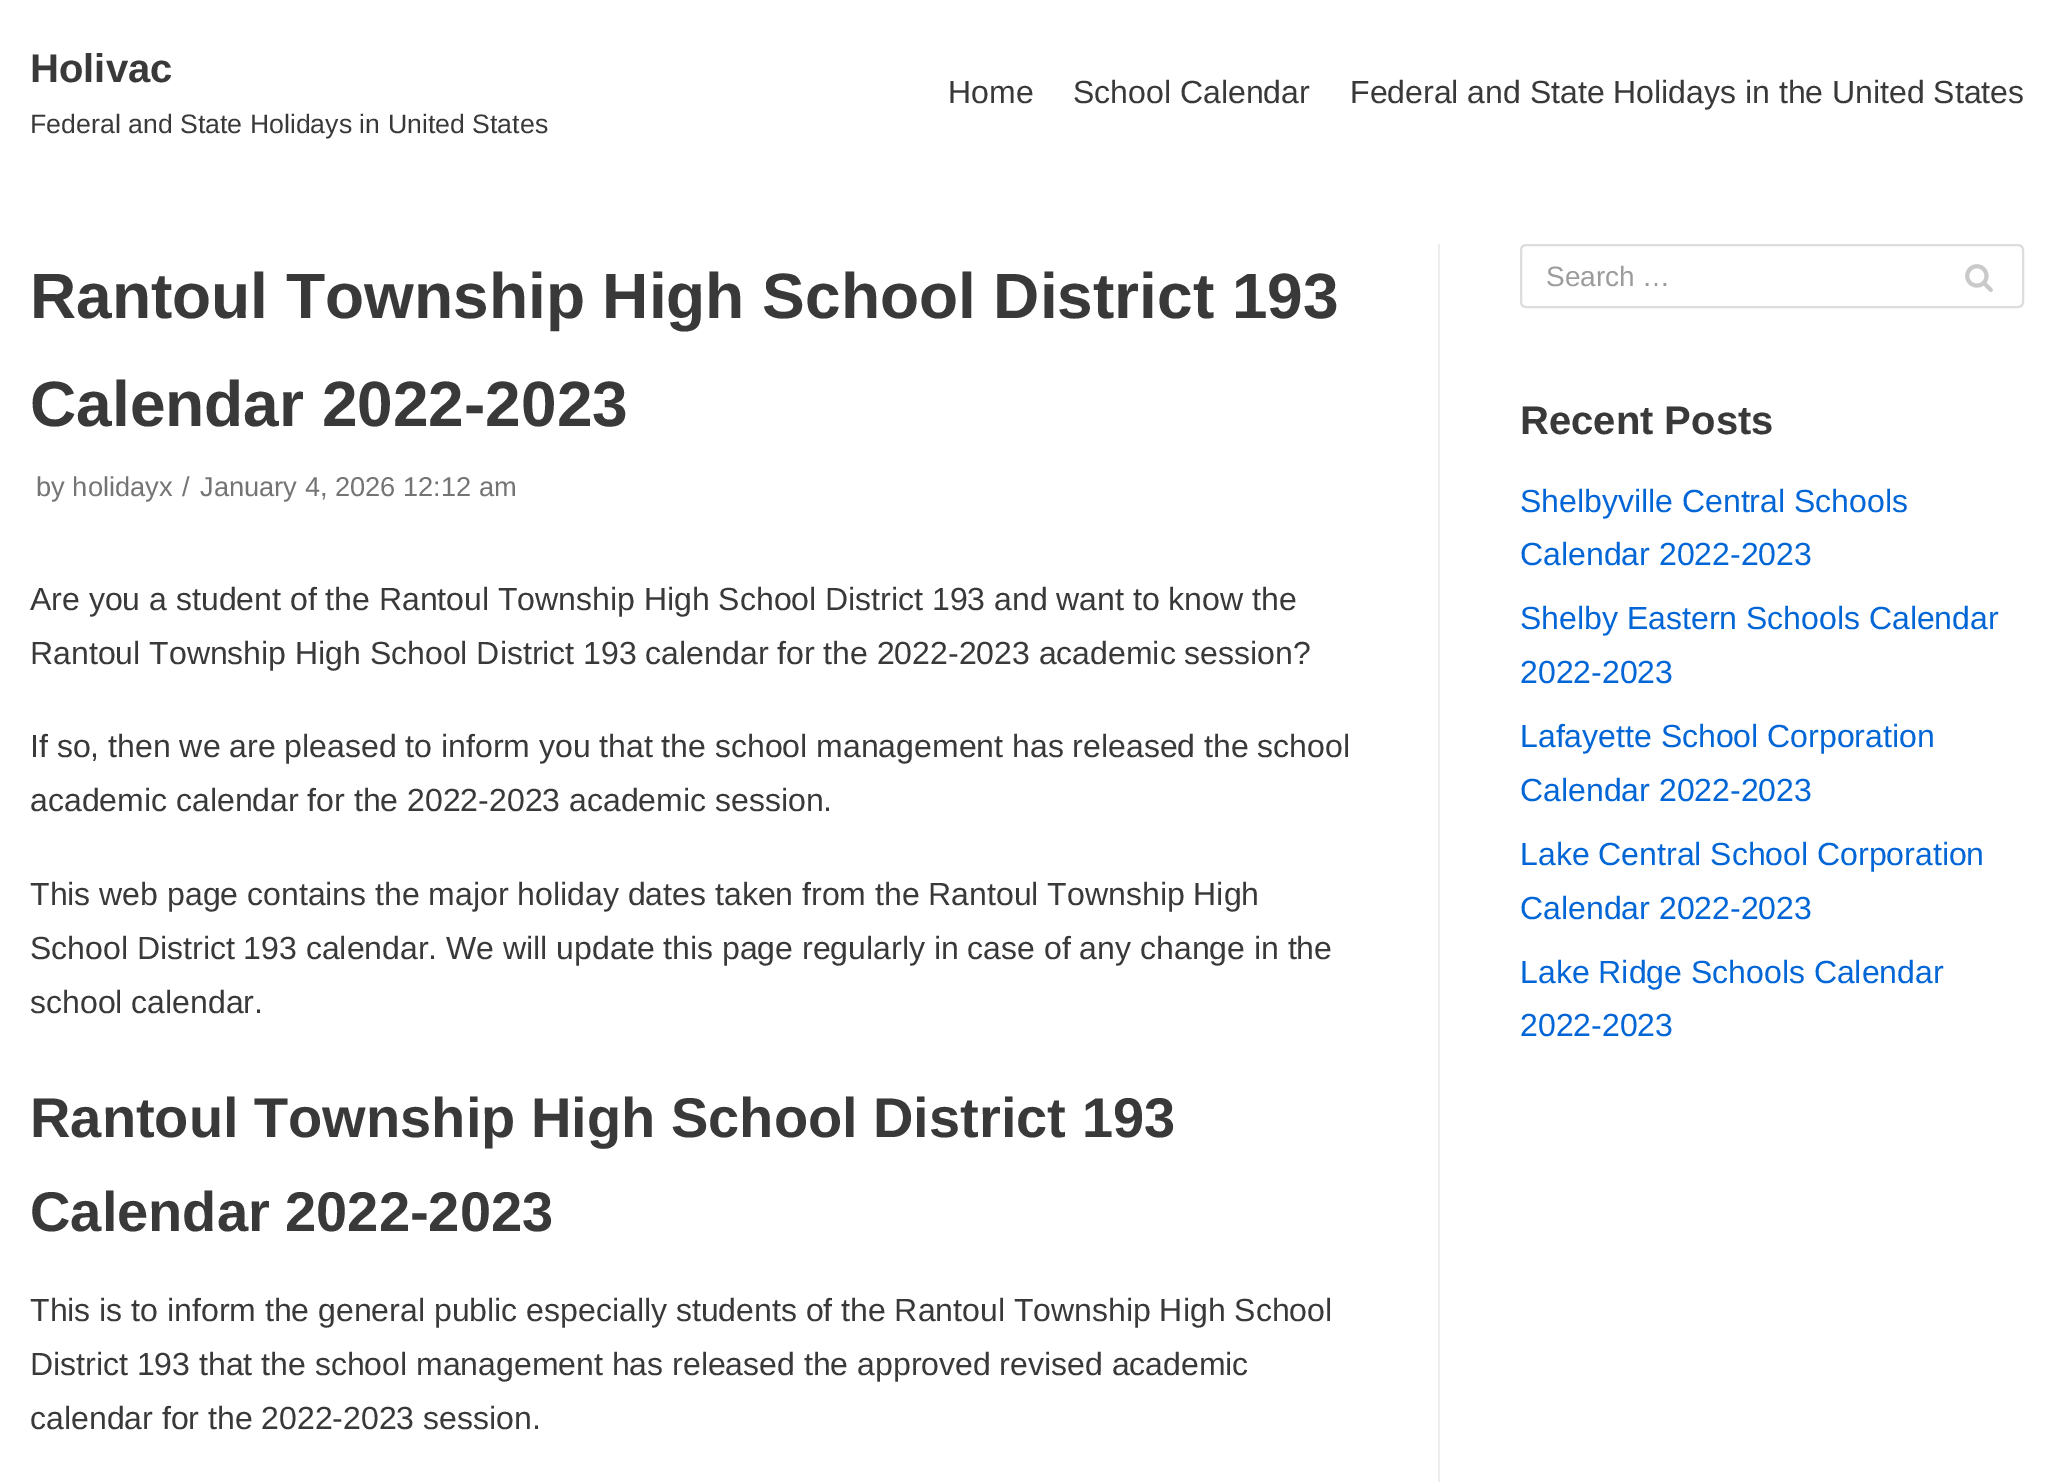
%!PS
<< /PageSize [2054 1482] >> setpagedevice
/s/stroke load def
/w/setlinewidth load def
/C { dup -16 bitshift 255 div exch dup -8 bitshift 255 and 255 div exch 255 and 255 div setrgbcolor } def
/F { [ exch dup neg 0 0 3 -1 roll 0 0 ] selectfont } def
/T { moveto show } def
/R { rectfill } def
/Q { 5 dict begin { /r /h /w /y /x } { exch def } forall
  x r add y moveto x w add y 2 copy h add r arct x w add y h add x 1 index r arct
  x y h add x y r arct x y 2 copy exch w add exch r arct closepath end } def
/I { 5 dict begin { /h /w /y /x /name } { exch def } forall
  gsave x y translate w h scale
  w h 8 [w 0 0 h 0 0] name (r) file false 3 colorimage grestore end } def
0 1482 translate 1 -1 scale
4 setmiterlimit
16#FFFFFF C
0 0 2054 1482 R
/LiberationSans-Bold 40 F
16#393939 C
(Holivac) 30 82 T
/LiberationSans-Regular 26.7 F
(Federal and State Holidays in United States) 30 133 T
/LiberationSans-Regular 32 F
(Home) 948 103 T
(School Calendar) 1073 103 T
(Federal and State Holidays in the United States) 1350 103 T
/LiberationSans-Bold 64 F
(Rantoul Township High School District 193) 30 318 T
(Calendar 2022-2023) 30 426 T
/LiberationSans-Regular 27.25 F
16#747474 C
(by holidayx) 36 496 T
(/) 182 496 T
(January 4, 2026 12:12 am) 200 496 T
/LiberationSans-Regular 32 F
16#393939 C
(Are you a student of the Rantoul Township High School District 193 and want to know the) 30 610 T
(Rantoul Township High School District 193 calendar for the 2022-2023 academic session?) 30 664 T
(If so, then we are pleased to inform you that the school management has released the school) 30 757 T
(academic calendar for the 2022-2023 academic session.) 30 811 T
(This web page contains the major holiday dates taken from the Rantoul Township High) 30 905 T
(School District 193 calendar. We will update this page regularly in case of any change in the) 30 959 T
(school calendar.) 30 1013 T
/LiberationSans-Bold 56 F
(Rantoul Township High School District 193) 30 1137 T
(Calendar 2022-2023) 30 1231 T
/LiberationSans-Regular 32 F
(This is to inform the general public especially students of the Rantoul Township High School) 30 1321 T
(District 193 that the school management has released the approved revised academic) 30 1375 T
(calendar for the 2022-2023 session.) 30 1429 T
16#EDEDED C
1438 244 2 1238 R
16#DDDDDD C
2 w
1521 245 502 62 5 Q s
/LiberationSans-Regular 28 F
16#9C9C9C C
(Search …) 1546 286 T
(1.rgb) 1965 264 28 28 I
/LiberationSans-Bold 40 F
16#393939 C
(Recent Posts) 1520 434 T
/LiberationSans-Regular 32 F
16#0366D6 C
(Shelbyville Central Schools) 1520 512 T
(Calendar 2022-2023) 1520 565 T
(Shelby Eastern Schools Calendar) 1520 629 T
(2022-2023) 1520 683 T
(Lafayette School Corporation) 1520 747 T
(Calendar 2022-2023) 1520 801 T
(Lake Central School Corporation) 1520 865 T
(Calendar 2022-2023) 1520 919 T
(Lake Ridge Schools Calendar) 1520 983 T
(2022-2023) 1520 1036 T
showpage
